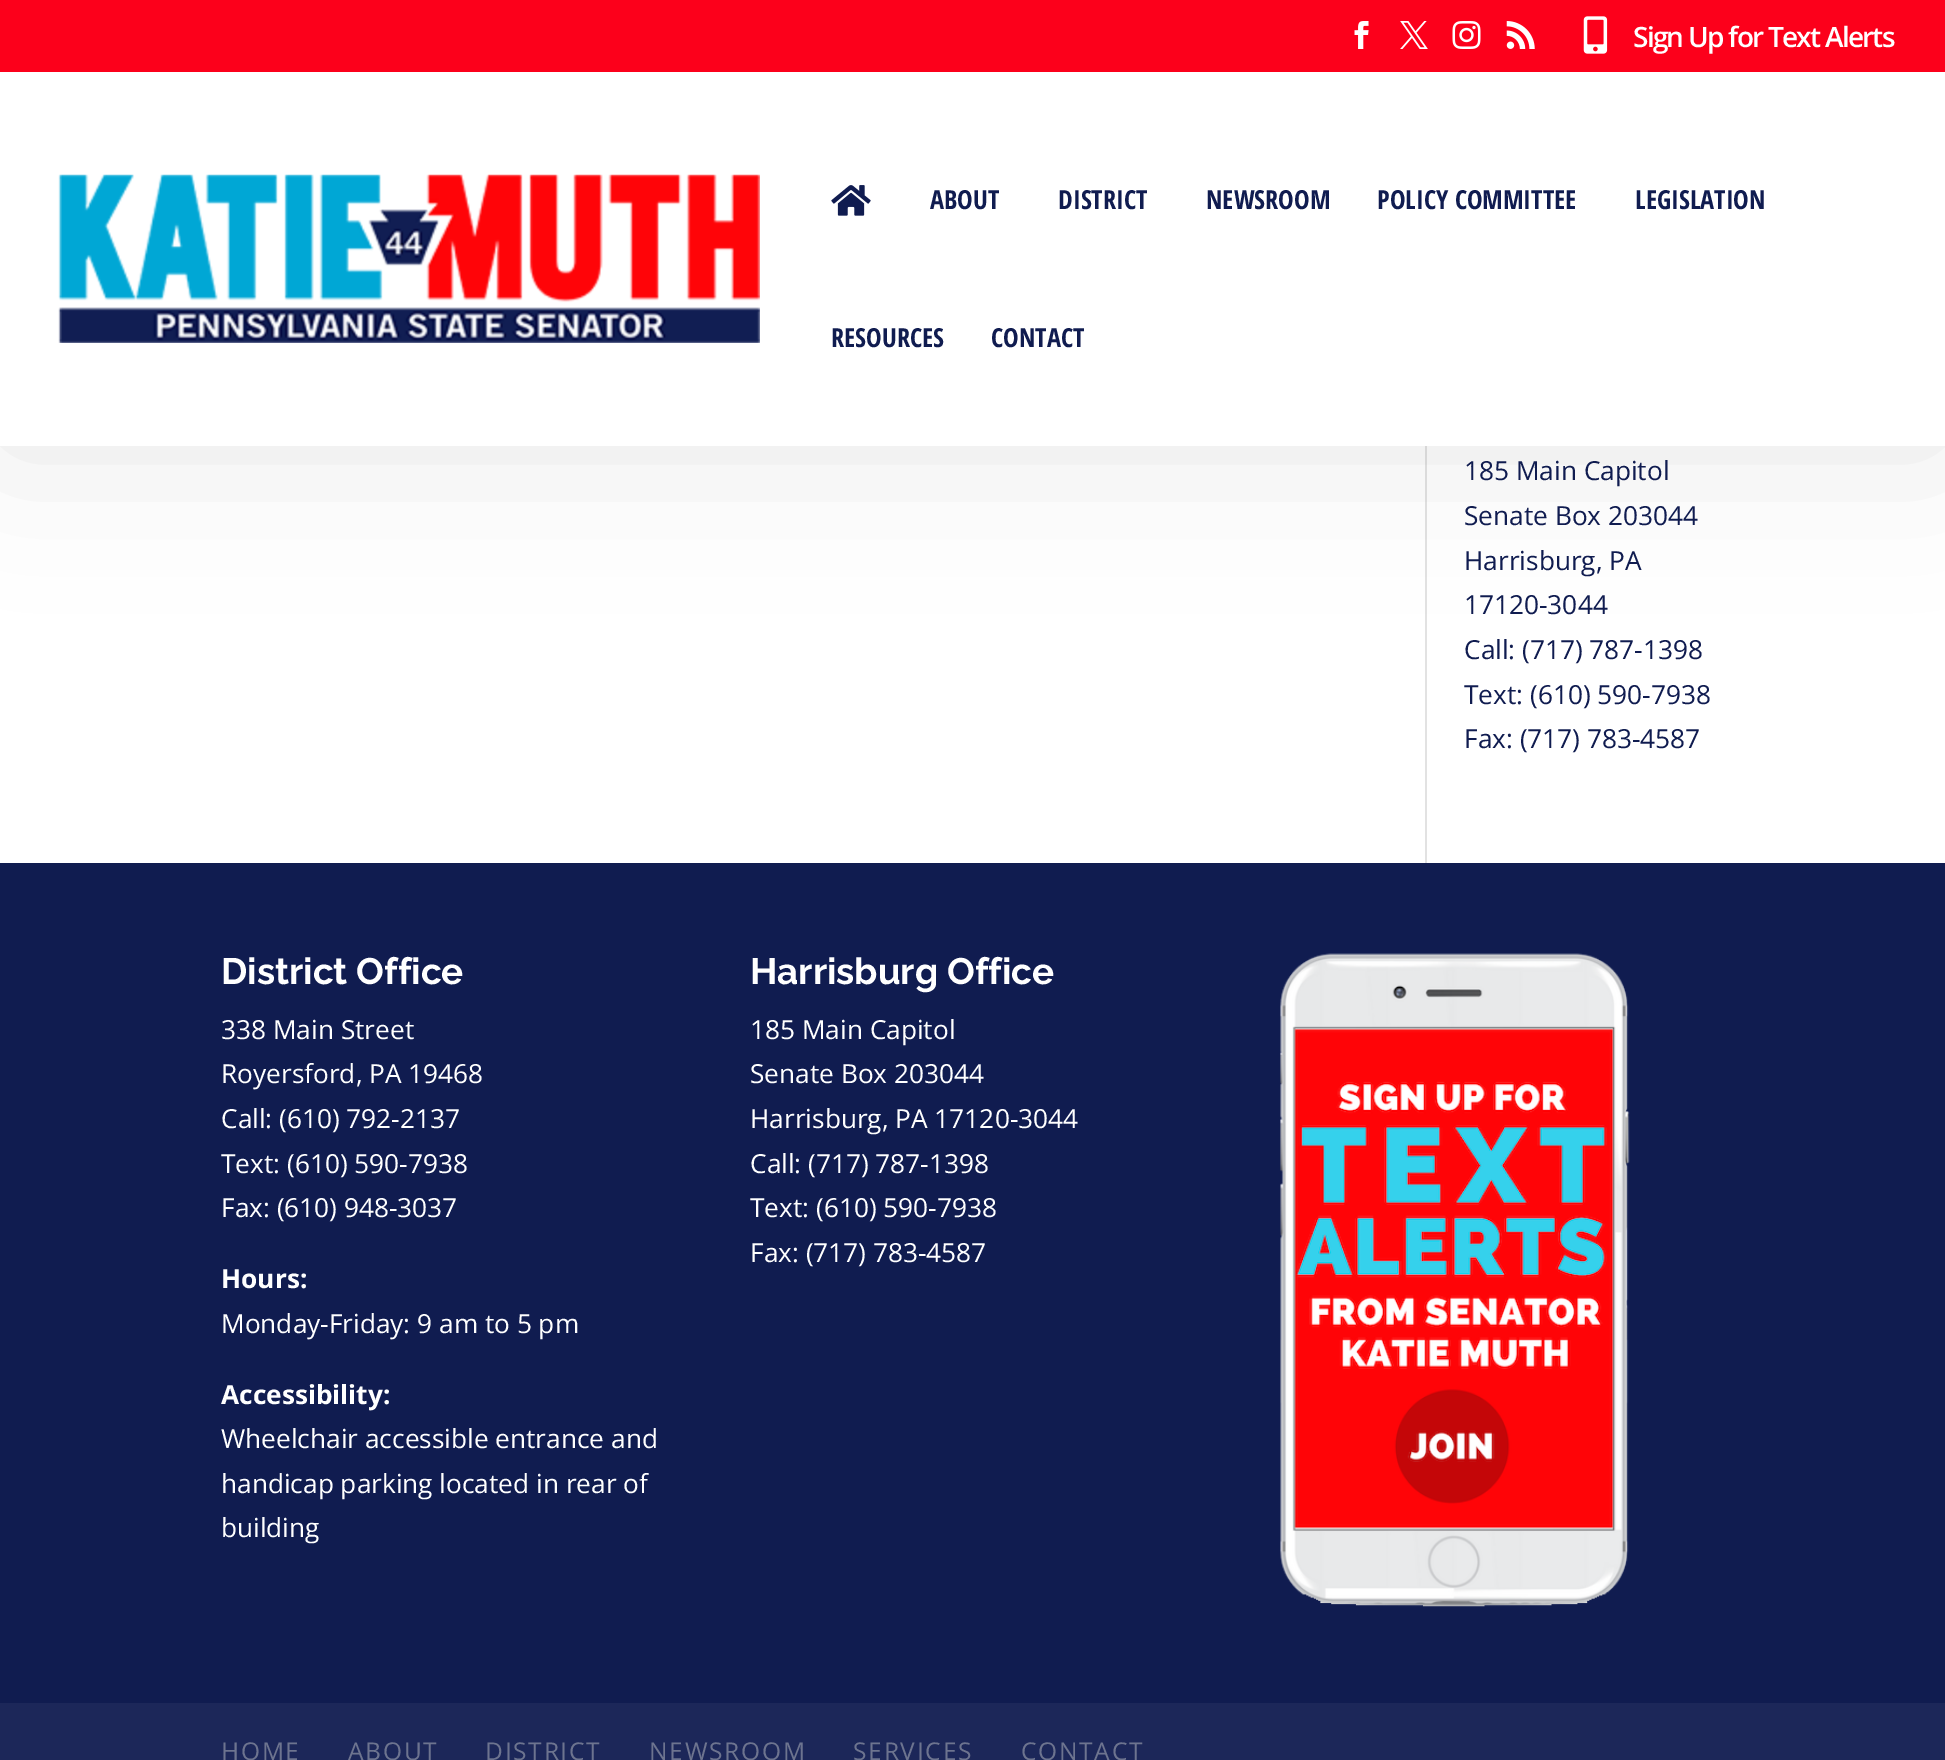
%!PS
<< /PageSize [1945 1760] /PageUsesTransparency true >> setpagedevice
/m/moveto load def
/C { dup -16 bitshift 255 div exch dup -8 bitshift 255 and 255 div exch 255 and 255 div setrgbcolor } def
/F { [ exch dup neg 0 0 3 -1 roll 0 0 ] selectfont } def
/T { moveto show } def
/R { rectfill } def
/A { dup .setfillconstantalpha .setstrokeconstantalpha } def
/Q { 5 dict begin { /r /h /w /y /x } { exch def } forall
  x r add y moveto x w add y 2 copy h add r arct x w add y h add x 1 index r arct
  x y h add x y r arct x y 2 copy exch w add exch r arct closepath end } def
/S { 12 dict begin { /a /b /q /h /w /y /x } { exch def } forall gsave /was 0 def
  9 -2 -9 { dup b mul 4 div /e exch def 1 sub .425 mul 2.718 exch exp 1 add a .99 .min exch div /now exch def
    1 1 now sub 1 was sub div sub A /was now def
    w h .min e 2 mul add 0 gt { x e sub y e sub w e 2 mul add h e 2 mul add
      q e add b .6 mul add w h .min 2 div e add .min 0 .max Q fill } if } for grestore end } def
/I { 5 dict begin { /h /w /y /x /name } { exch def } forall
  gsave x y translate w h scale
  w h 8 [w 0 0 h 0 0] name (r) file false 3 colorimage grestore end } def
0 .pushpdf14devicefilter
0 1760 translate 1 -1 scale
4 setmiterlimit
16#FFFFFF C
0 0 1945 1760 R
16#E2E2E2 C
1425 446 2 417 R
16#000000 C
0 72 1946 374 0 74.5 .1 S
16#FC001B C
0 0 1945 72 R
(1.rgb) 1354 21 15 28 I
(2.rgb) 1400 21 28 28 I
(3.rgb) 1452 21 29 28 I
(4.rgb) 1506 21 29 28 I
(5.rgb) 1583 16 25 38 I
/OpenSans-SemiBold 28 F
16#FFFFFF C
1633 47 m -1.75 0 (Sign Up for Text Alerts) ashow
0 72 1945 374 R
(6.rgb) 58 174 702 169 I
(7.rgb) 831 185 40 31 I
/OpenSansCondensed-Bold 26.25 F
16#101C50 C
(ABOUT) 930 209 T
(DISTRICT) 1058 209 T
(NEWSROOM) 1206 209 T
(POLICY COMMITTEE) 1377 209 T
(LEGISLATION) 1635 209 T
(RESOURCES) 831 347 T
(CONTACT) 991 347 T
/OpenSans-Regular 26.25 F
(185 Main Capitol) 1464 480 T
(Senate Box 203044) 1464 525 T
(Harrisburg, PA) 1464 570 T
(17120-3044) 1464 614 T
(Call: \(717\) 787-1398) 1464 659 T
(Text: \(610\) 590-7938) 1464 704 T
(Fax: \(717\) 783-4587) 1464 748 T
0 863 1945 840 R
/Raleway-Bold 36.75 F
16#FFFFFF C
(District Office) 221 984 T
/OpenSans-Regular 26.25 F
(338 Main Street) 221 1039 T
(Royersford, PA 19468) 221 1083 T
(Call: \(610\) 792-2137) 221 1128 T
(Text: \(610\) 590-7938) 221 1173 T
(Fax: \(610\) 948-3037) 221 1217 T
/OpenSans-Bold 26.25 F
(Hours:) 221 1288 T
/OpenSans-Regular 26.25 F
(Monday-Friday: 9 am to 5 pm) 221 1333 T
/OpenSans-Bold 26.25 F
(Accessibility:) 221 1404 T
/OpenSans-Regular 26.25 F
(Wheelchair accessible entrance and) 221 1448 T
(handicap parking located in rear of) 221 1493 T
(building) 221 1537 T
/Raleway-Bold 36.75 F
(Harrisburg Office) 750 984 T
/OpenSans-Regular 26.25 F
(185 Main Capitol) 750 1039 T
(Senate Box 203044) 750 1083 T
(Harrisburg, PA 17120-3044) 750 1128 T
(Call: \(717\) 787-1398) 750 1173 T
(Text: \(610\) 590-7938) 750 1217 T
(Fax: \(717\) 783-4587) 750 1262 T
(8.rgb) 1280 953 350 654 I
16#1C2759 C
0 1703 1945 57 R
/OpenSans-Regular 24.5 F
16#6D748F C
221 1760 m 1.75 0 (HOME) ashow
348 1760 m 1.75 0 (ABOUT) ashow
485 1760 m 1.75 0 (DISTRICT) ashow
649 1760 m 1.75 0 (NEWSROOM) ashow
853 1760 m 1.75 0 (SERVICES) ashow
1021 1760 m 1.75 0 (CONTACT) ashow
.poppdf14devicefilter showpage
